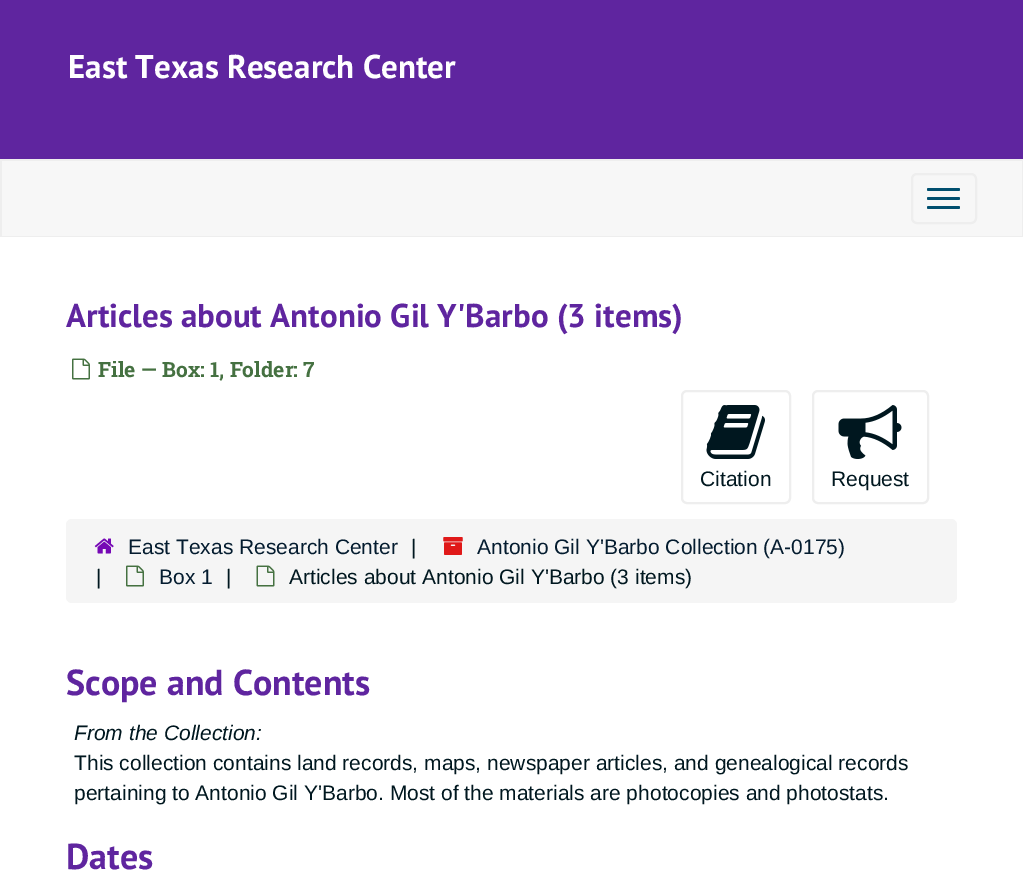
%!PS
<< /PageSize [1023 890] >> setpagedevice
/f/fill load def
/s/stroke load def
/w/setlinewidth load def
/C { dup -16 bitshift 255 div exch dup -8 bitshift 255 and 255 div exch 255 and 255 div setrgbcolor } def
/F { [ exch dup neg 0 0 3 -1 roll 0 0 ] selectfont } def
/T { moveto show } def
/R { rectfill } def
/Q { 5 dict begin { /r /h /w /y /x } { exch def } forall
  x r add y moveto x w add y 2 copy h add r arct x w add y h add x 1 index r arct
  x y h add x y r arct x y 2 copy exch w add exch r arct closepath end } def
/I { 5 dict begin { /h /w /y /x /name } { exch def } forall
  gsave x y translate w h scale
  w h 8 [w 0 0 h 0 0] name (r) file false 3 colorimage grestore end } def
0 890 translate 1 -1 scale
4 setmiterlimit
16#FFFFFF C
0 0 1023 890 R
16#5F259F C
0 0 1023 159 R
/PTSans-Bold 33 F
16#FFFFFF C
(East Texas Research Center) 68 78 T
16#EEEEEE C
0 159 1023 78 R
16#F7F7F7 C
2 161 1020 75 R
16#EEEEEE C
2 w
912 174 64 49 5 Q s
16#004F6F C
927 188 33 3 1.5 Q f
927 197 33 3 1.5 Q f
927 206 33 3 1.5 Q f
16#5F259F C
(Articles about Antonio Gil Y'Barbo \(3 items\)) 66 327 T
(1.rgb) 72 358 18 22 I
/RobotoSlab-Bold 21 F
16#457141 C
(File — Box: 1, Folder: 7) 98 377 T
16#EEEEEE C
682 391 108 112 5 Q s
(2.rgb) 706 405 59 54 I
/LiberationSans-Regular 21 F
16#00171F C
(Citation) 700 486 T
16#EEEEEE C
813 391 115 112 5 Q s
(3.rgb) 838 405 64 54 I
16#00171F C
(Request) 831 486 T
16#F5F5F5 C
66 519 891 84 6 Q f
(4.rgb) 94 538 20 16 I
16#041C2F C
(East Texas Research Center) 128 554 T
16#00171F C
(|) 411 554 T
(5.rgb) 443 537 20 18 I
16#041C2F C
(Antonio Gil Y'Barbo Collection \(A-0175\)) 477 554 T
16#00171F C
(|) 96 584 T
(6.rgb) 126 565 18 22 I
16#041C2F C
(Box 1) 159 584 T
16#00171F C
(|) 226 584 T
(7.rgb) 256 565 19 22 I
(Articles about Antonio Gil Y'Barbo \(3 items\)) 289 584 T
/PTSans-Bold 36 F
16#5F259F C
(Scope and Contents) 66 695 T
/LiberationSans-Italic 21 F
16#00171F C
(From the Collection:) 74 740 T
/LiberationSans-Regular 21 F
(This collection contains land records, maps, newspaper articles, and genealogical records) 74 770 T
(pertaining to Antonio Gil Y'Barbo. Most of the materials are photocopies and photostats.) 74 800 T
/PTSans-Bold 36 F
16#5F259F C
(Dates) 66 869 T
showpage
